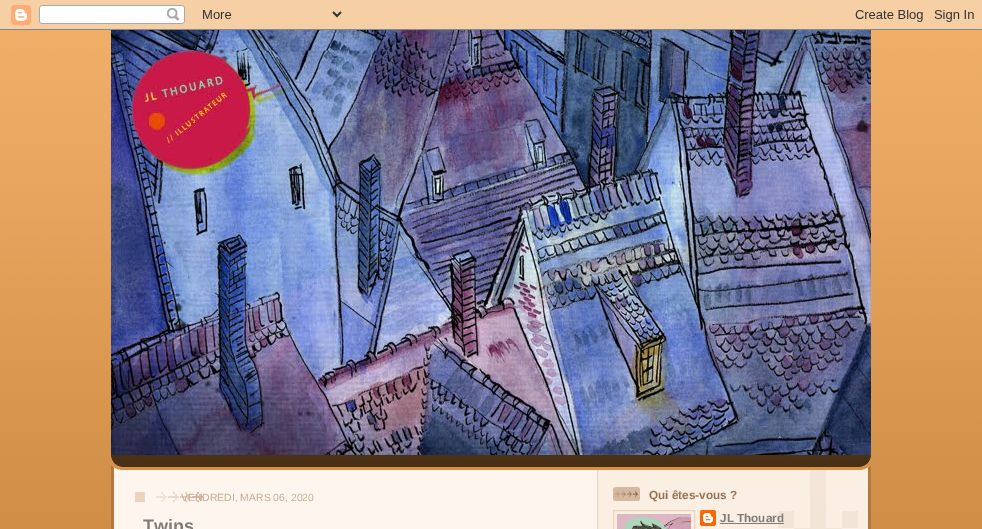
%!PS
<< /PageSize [982 529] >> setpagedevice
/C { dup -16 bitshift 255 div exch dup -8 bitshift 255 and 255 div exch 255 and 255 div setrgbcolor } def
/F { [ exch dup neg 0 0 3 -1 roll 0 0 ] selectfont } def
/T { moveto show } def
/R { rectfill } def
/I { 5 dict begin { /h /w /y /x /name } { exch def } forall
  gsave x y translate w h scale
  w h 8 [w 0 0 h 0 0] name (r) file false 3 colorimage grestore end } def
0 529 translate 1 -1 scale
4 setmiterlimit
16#FFFFFF C
0 0 982 529 R
(1.rgb) 0 0 982 529 I
(2.rgb) 0 0 982 30 I
(3.rgb) 111 455 760 15 I
(4.rgb) 111 30 760 425 I
(5.rgb) 111 470 760 59 I
16#FEF6EE C
114 470 483 59 R
16#EBD4BD C
135 492 10 10 R
(6.rgb) 156 492 47 10 I
/LiberationSans-Regular 10.4 F
16#C8AB8F C
(VENDREDI, MARS 06, 2020) 181 501 T
/LiberationSans-Bold 18 F
16#7F7B77 C
(Twins) 143 532 T
16#FBEFE3 C
599 470 269 59 R
(7.rgb) 778 470 80 59 I
(8.rgb) 613 487 27 14 I
/LiberationSans-Bold 11.75 F
16#957252 C
(Qui êtes-vous ?) 649 499 T
16#EBD4BD C
613.5 510.5 81 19 rectstroke
(9.rgb) 617 514 74 15 I
(10.rgb) 700 510 16 16 I
16#7F7B77 C
(JL Thouard) 720 522 T
720 523 64 1 R
showpage
